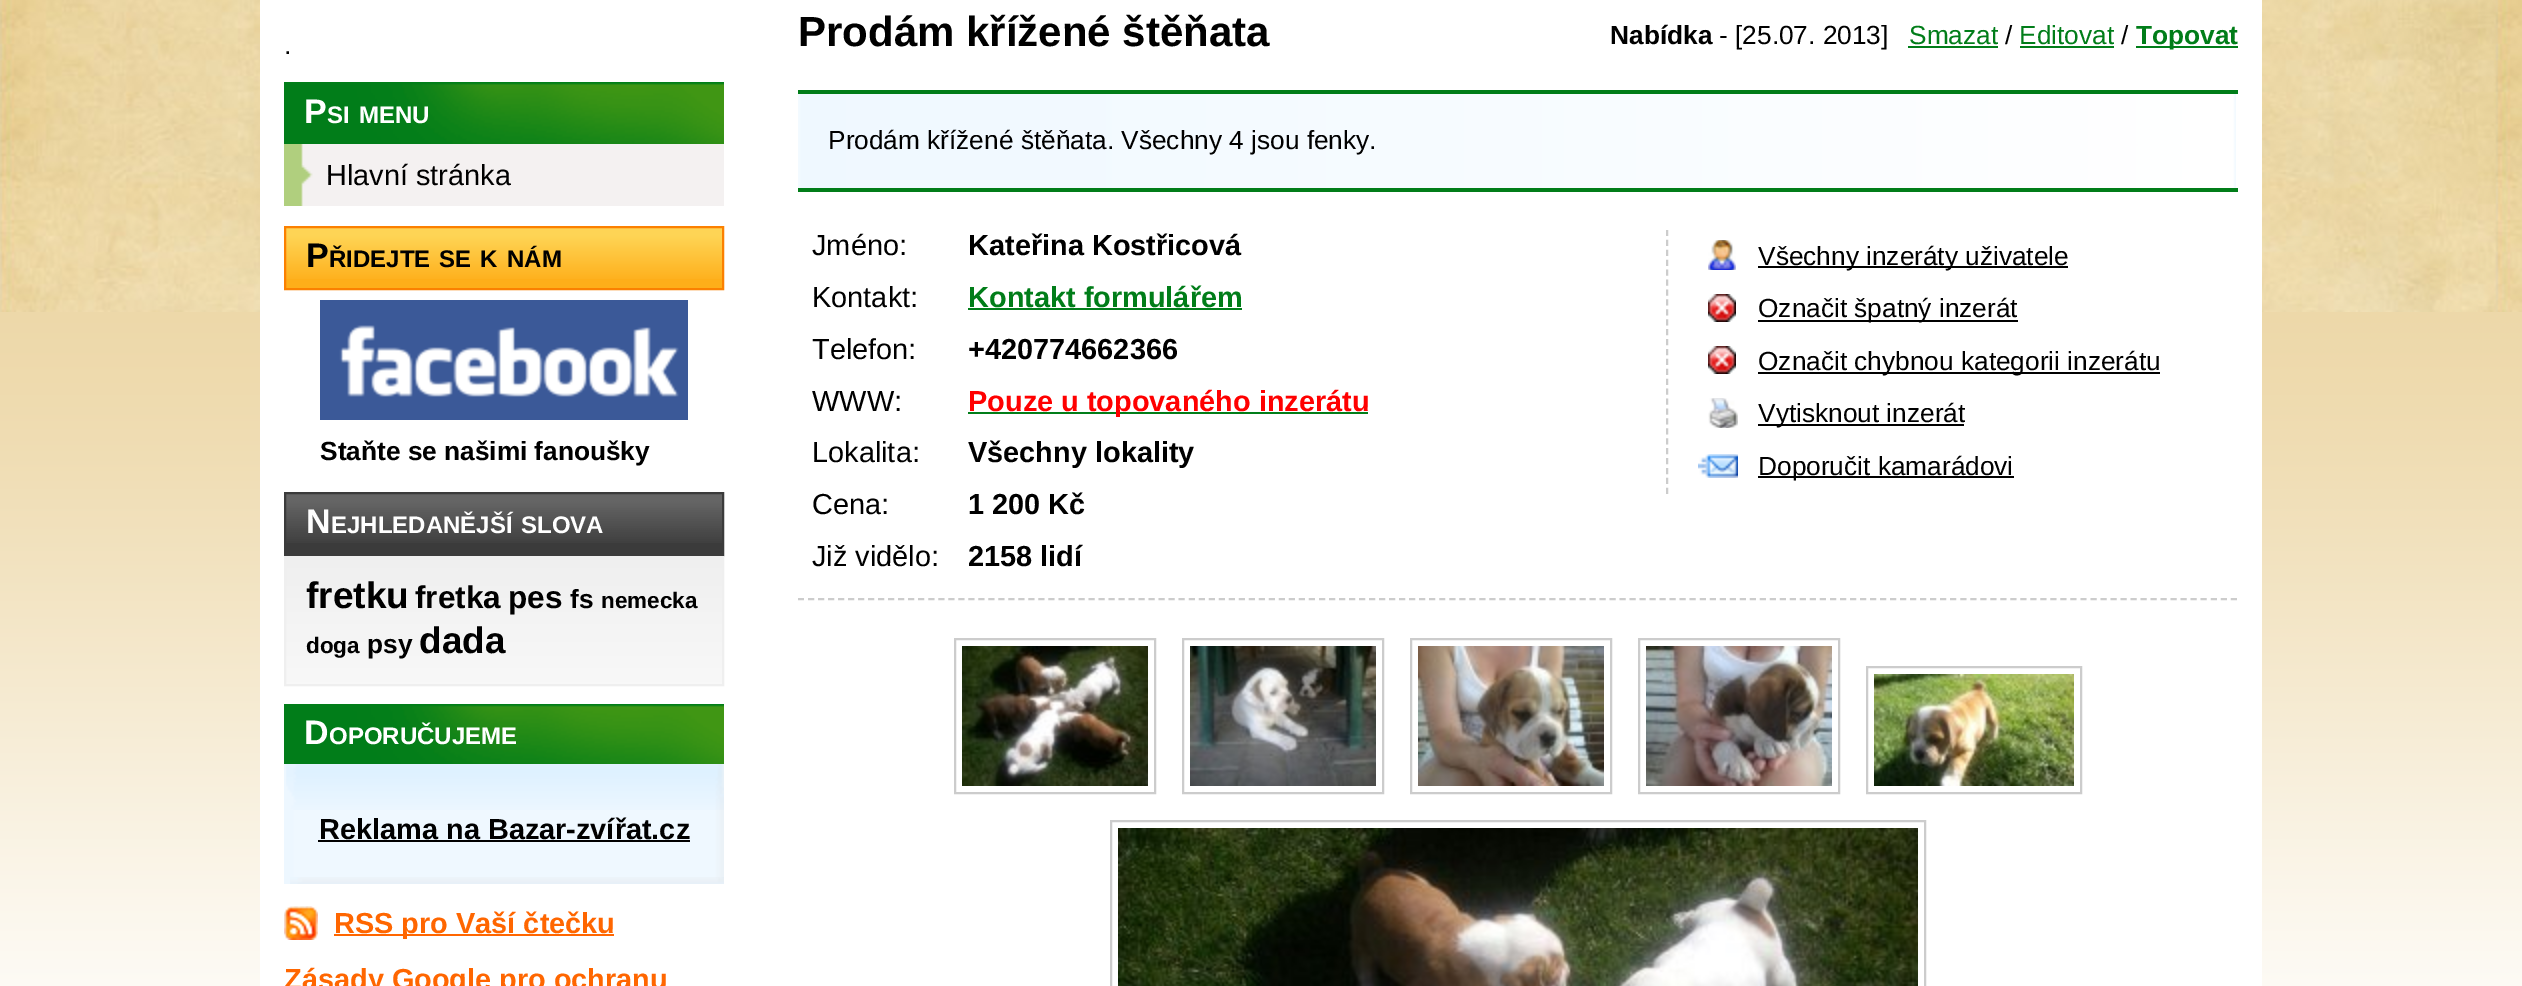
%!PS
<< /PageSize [2522 986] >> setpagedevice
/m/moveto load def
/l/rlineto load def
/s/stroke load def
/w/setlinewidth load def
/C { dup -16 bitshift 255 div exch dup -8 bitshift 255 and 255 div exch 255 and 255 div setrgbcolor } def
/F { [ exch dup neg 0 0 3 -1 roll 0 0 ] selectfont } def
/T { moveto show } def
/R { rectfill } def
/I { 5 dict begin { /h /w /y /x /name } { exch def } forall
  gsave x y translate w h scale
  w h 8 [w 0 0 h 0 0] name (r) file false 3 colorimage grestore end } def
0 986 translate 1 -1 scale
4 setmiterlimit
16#FFFFFF C
0 0 2522 986 R
(1.rgb) 0 312 2522 674 I
(2.rgb) 0 0 2522 312 I
260 0 2002 986 R
/LiberationSans-Regular 26.25 F
16#000000 C
(.) 284 54 T
(3.rgb) 284 82 440 62 I
/LiberationSans-Bold 34 F
16#FFFFFF C
(P) 304 123 T
/LiberationSans-Bold 24 F
(SI) 327 123 T
(MENU) 359 123 T
(4.rgb) 284 144 440 62 I
/LiberationSans-Regular 28.9 F
16#000000 C
(Hlavní stránka) 326 185 T
16#FEAE19 C
286 279 436 9 R
(5.rgb) 286 228 436 51 I
16#FB8000 C
2 w
285 227 438 62 rectstroke
/LiberationSans-Bold 34 F
16#000000 C
(P) 306 267 T
/LiberationSans-Bold 24 F
(ŘIDEJTE) 329 267 T
(SE) 439 267 T
(K) 480 267 T
(NÁM) 507 267 T
(6.rgb) 320 300 368 120 I
/LiberationSans-Bold 26.25 F
(Staňte se našimi fanoušky) 320 460 T
16#3B3B3B C
286 543 436 11 R
(7.rgb) 286 494 436 49 I
285 493 438 62 rectstroke
/LiberationSans-Bold 34 F
16#FFFFFF C
(N) 306 533 T
/LiberationSans-Bold 24 F
(EJHLEDANĚJŠÍ) 331 533 T
(SLOVA) 521 533 T
(8.rgb) 286 558 436 126 I
16#EFEFEF C
285 557 438 128 rectstroke
/LiberationSans-Bold 37 F
16#000000 C
(fretku) 306 608 T
/LiberationSans-Bold 31.5 F
(fretka) 415 608 T
(pes) 508 608 T
/LiberationSans-Bold 26.25 F
(fs) 570 608 T
/LiberationSans-Bold 22.5 F
(nemecka) 601 608 T
(doga) 306 653 T
/LiberationSans-Bold 26.25 F
(psy) 367 653 T
/LiberationSans-Bold 37 F
(dada) 419 653 T
(9.rgb) 284 764 440 120 I
(10.rgb) 284 704 440 60 I
/LiberationSans-Bold 34 F
16#FFFFFF C
(D) 304 744 T
/LiberationSans-Bold 24 F
(OPORUČUJEME) 329 744 T
(11.rgb) 286 764 438 46 I
(12.rgb) 290 877 434 7 I
/LiberationSans-Bold 28.9 F
16#000000 C
(Reklama na Bazar-zvířat.cz) 319 839 T
318 840 372 2 R
(13.rgb) 284 906 34 34 I
16#FF6600 C
334 934 280 2 R
(RSS pro Vaší čtečku) 334 933 T
(Zásady Google pro ochranu) 284 989 T
/LiberationSans-Bold 42 F
16#000000 C
(Prodám křížené štěňata) 798 46 T
/LiberationSans-Bold 26.25 F
(Nabídka) 1610 44 T
/LiberationSans-Regular 26.25 F
(- [25.07. 2013]) 1719 44 T
16#017D19 C
(Smazat) 1909 44 T
1908 46 90 2 R
16#000000 C
(/) 2005 44 T
16#017D19 C
(Editovat) 2019 44 T
2020 46 94 2 R
16#000000 C
(/) 2121 44 T
16#017D19 C
2136 46 102 2 R
/LiberationSans-Bold 26.25 F
(Topovat) 2136 44 T
(14.rgb) 798 94 1438 94 I
798 90 1440 4 R
798 188 1440 4 R
/LiberationSans-Regular 26.25 F
16#000000 C
(Prodám křížené štěňata. Všechny 4 jsou fenky.) 828 149 T
/LiberationSans-Regular 28.9 F
(Jméno:) 812 255 T
/LiberationSans-Bold 28.9 F
(Kateřina Kostřicová) 968 255 T
/LiberationSans-Regular 28.9 F
(Kontakt:) 812 307 T
/LiberationSans-Bold 28.9 F
16#017D19 C
(Kontakt formulářem) 968 307 T
968 308 274 2 R
/LiberationSans-Regular 28.9 F
16#000000 C
(Telefon:) 812 359 T
/LiberationSans-Bold 28.9 F
(+420774662366) 968 359 T
/LiberationSans-Regular 28.9 F
(WWW:) 812 411 T
16#017D19 C
968 412 400 2 R
/LiberationSans-Bold 28.9 F
16#FF0000 C
(Pouze u topovaného inzerátu) 968 411 T
/LiberationSans-Regular 28.9 F
16#000000 C
(Lokalita:) 812 462 T
/LiberationSans-Bold 28.9 F
(Všechny lokality) 968 462 T
/LiberationSans-Regular 28.9 F
(Cena:) 812 514 T
/LiberationSans-Bold 28.9 F
(1 200 Kč) 968 514 T
/LiberationSans-Regular 28.9 F
(Již vidělo:) 812 566 T
/LiberationSans-Bold 28.9 F
(2158 lidí) 968 566 T
16#CCCCCC C
[6 3.92] 0 setdash
1667 230 m 0 264 l s
(15.rgb) 1708 240 28 30 I
16#000000 C
1758 266 310 2 R
/LiberationSans-Regular 26.25 F
(Všechny inzeráty uživatele) 1758 265 T
(16.rgb) 1708 294 28 28 I
1758 320 260 2 R
(Označit špatný inzerát) 1758 317 T
(16.rgb) 1708 346 28 28 I
1758 372 402 2 R
(Označit chybnou kategorii inzerátu) 1758 370 T
(17.rgb) 1708 398 30 30 I
1758 424 206 2 R
(Vytisknout inzerát) 1758 422 T
(18.rgb) 1698 454 40 24 I
1758 476 256 2 R
(Doporučit kamarádovi) 1758 475 T
16#CCCCCC C
[6 4.02] 0 setdash
798 599 m 1440 0 l s
[] 0 setdash
955 639 200 154 rectstroke
1183 639 200 154 rectstroke
1411 639 200 154 rectstroke
1639 639 200 154 rectstroke
(19.rgb) 962 646 186 140 I
(20.rgb) 1190 646 186 140 I
(21.rgb) 1418 646 186 140 I
(22.rgb) 1646 646 186 140 I
1867 667 214 126 rectstroke
(23.rgb) 1874 674 200 112 I
1111 821 814 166 rectstroke
(24.rgb) 1118 828 800 158 I
showpage
